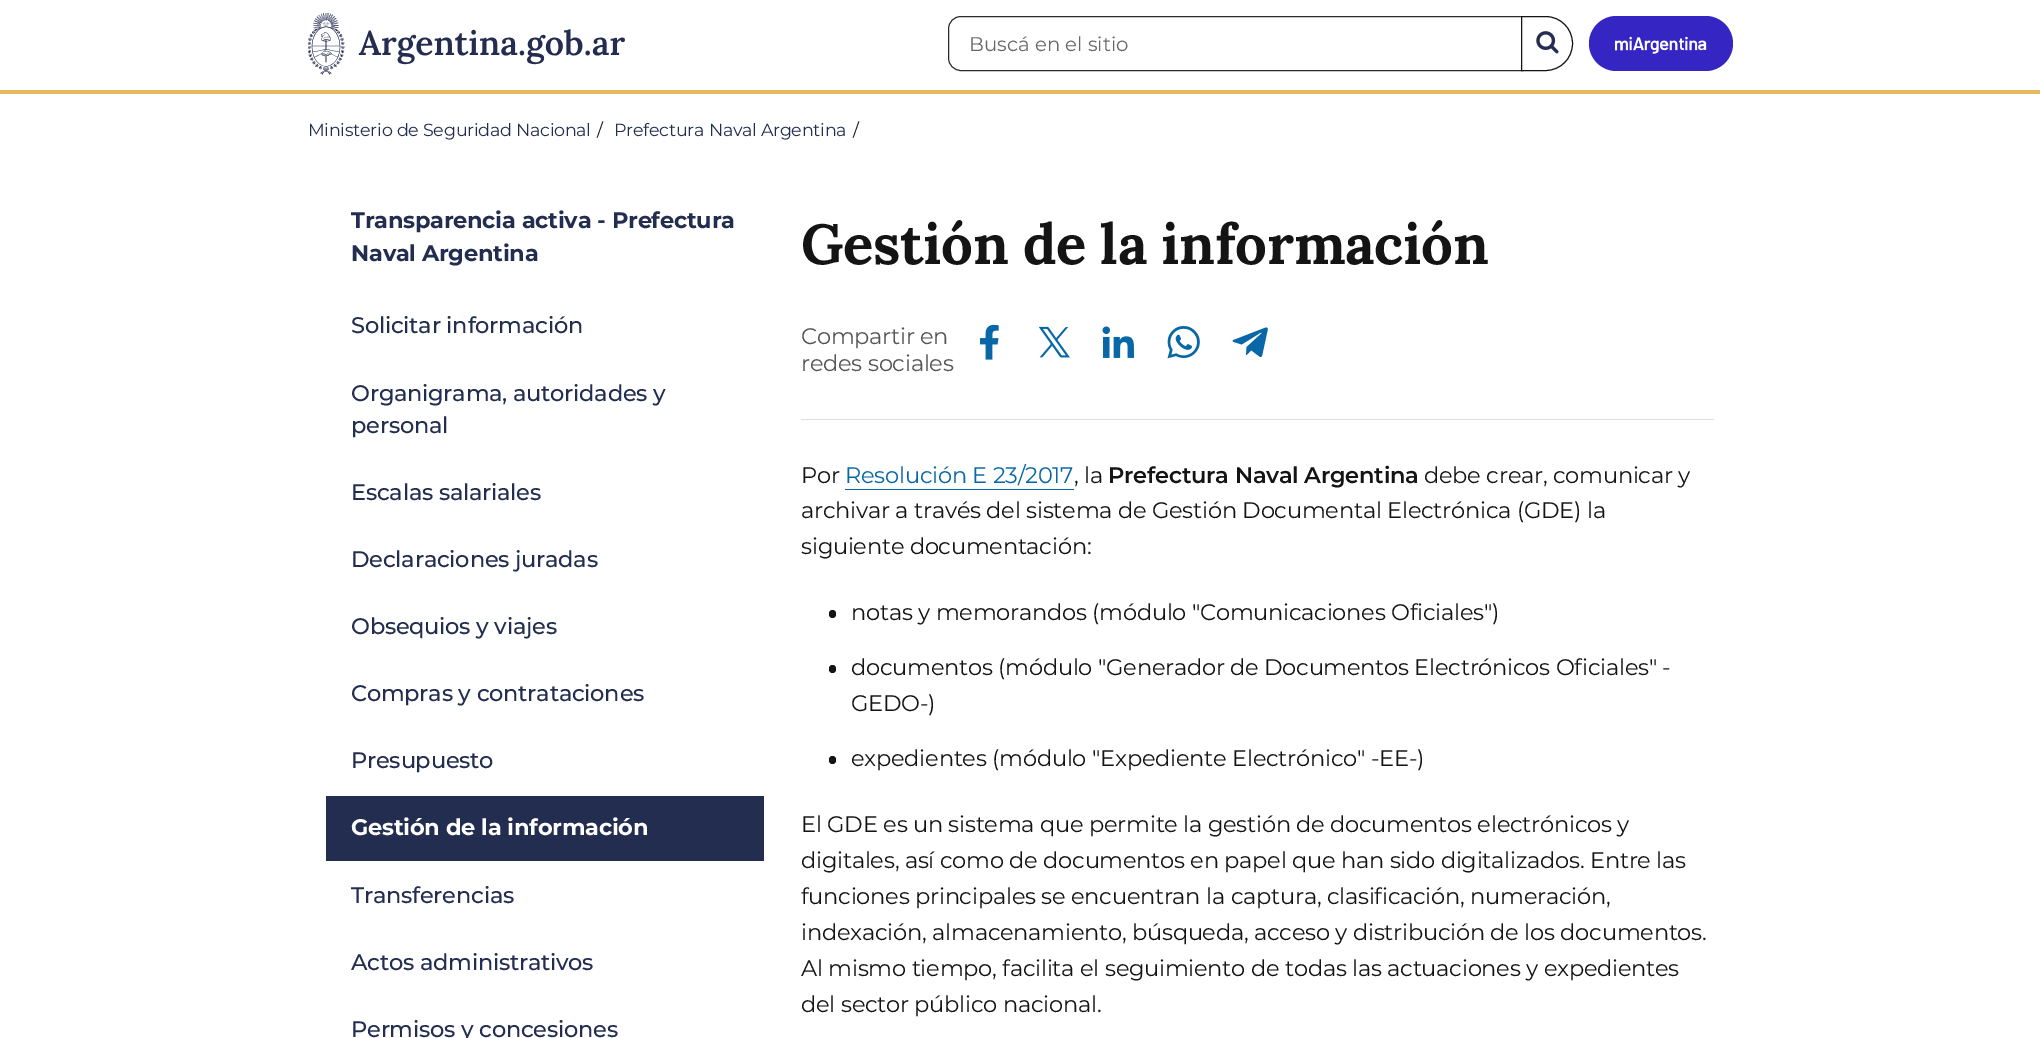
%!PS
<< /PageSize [2040 1038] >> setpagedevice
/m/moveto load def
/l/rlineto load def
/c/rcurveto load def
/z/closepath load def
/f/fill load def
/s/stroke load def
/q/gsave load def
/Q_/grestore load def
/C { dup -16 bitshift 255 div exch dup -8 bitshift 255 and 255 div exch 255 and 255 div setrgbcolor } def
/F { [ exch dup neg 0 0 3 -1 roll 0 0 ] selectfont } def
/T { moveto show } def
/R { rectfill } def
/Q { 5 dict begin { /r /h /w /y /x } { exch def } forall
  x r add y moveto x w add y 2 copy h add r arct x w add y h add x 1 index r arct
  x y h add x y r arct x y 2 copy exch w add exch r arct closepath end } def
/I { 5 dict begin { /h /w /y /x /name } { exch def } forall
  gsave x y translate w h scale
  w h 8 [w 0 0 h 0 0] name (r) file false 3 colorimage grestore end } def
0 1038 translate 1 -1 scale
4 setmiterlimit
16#FFFFFF C
0 0 2040 1038 R
16#E7BA61 C
0 90 2040 4 R
(1.rgb) 308 13 317 62 I
16#2C2C2C C
961 16.5 m 561.5 0 l 0 54 l -561.5 0 l -7 0 -12.5 -5.5 -12.5 -12.5 c 0 -29 l 0 -7 5.5 -12.5 12.5 -12.5 c z s
/Montserrat-Regular 19.75 F
16#666666 C
(Buscá en el sitio) 969 51 T
16#FFFFFF C
1521.5 16.5 m 24 0 l 15 0 27 12 27 27 c 0 15 -12 27 -27 27 c -24 0 l z q f Q_
16#141414 C
s
(2.rgb) 1536 31 23 23 I
16#3526C3 C
1589 16 144 55 27.5 Q f
(3.rgb) 1615 36 92 18 I
/Montserrat-Regular 17.5 F
16#232D4F C
308 136 m -.25 0 (Ministerio de Seguridad Nacional) ashow
16#141414 C
597 136 m -.25 0 (/) ashow
16#232D4F C
614 136 m -.25 0 (Prefectura Naval Argentina) ashow
16#141414 C
853 136 m -.25 0 (/) ashow
/Montserrat-Bold 22.5 F
16#232D4F C
351 228 m -.25 0 (Transparencia activa - Prefectura) ashow
351 261 m -.25 0 (Naval Argentina) ashow
/Montserrat-Medium 22.5 F
351 333 m -.25 0 (Solicitar información) ashow
351 401 m -.25 0 (Organigrama, autoridades y) ashow
351 433 m -.25 0 (personal) ashow
351 500 m -.25 0 (Escalas salariales) ashow
351 567 m -.25 0 (Declaraciones juradas) ashow
351 634 m -.25 0 (Obsequios y viajes) ashow
351 701 m -.25 0 (Compras y contrataciones) ashow
351 768 m -.25 0 (Presupuesto) ashow
326 796 438 65 R
/Montserrat-Bold 22.5 F
16#FFFFFF C
351 835 m -.25 0 (Gestión de la información) ashow
/Montserrat-Medium 22.5 F
16#232D4F C
351 903 m -.25 0 (Transferencias) ashow
351 970 m -.25 0 (Actos administrativos) ashow
351 1037 m -.25 0 (Permisos y concesiones) ashow
/Lora-Bold 56.25 F
16#141414 C
801 264 m -.3 0 (Gestión de la información) ashow
/Montserrat-Regular 22.5 F
16#555555 C
801 344 m -.25 0 (Compartir en) ashow
801 371 m -.25 0 (redes sociales) ashow
(4.rgb) 980 324 19 36 I
(5.rgb) 1038 326 32 32 I
(6.rgb) 1102 326 33 32 I
(7.rgb) 1167 326 33 33 I
(8.rgb) 1232 327 36 30 I
16#DDDDDD C
801 419 913 1 R
16#141414 C
801 483 m -.25 0 (Por) ashow
16#0767A7 C
845 483 m -.25 0 (Resolución E 23/2017) ashow
845 489 229 1 R
16#141414 C
1074 483 m -.25 0 (, la) ashow
/Montserrat-SemiBold 22.5 F
1108 483 m -.25 0 (Prefectura Naval Argentina) ashow
/Montserrat-Regular 22.5 F
1424 483 m -.25 0 (debe crear, comunicar y) ashow
801 518 m -.25 0 (archivar a través del sistema de Gestión Documental Electrónica \(GDE\) la) ashow
801 554 m -.25 0 (siguiente documentación:) ashow
829 610 7 8 3.5 Q f
851 620 m -.25 0 (notas y memorandos \(módulo "Comunicaciones Oficiales"\)) ashow
829 665 7 8 3.5 Q f
851 675 m -.25 0 (documentos \(módulo "Generador de Documentos Electrónicos Oficiales" -) ashow
851 711 m -.25 0 (GEDO-\)) ashow
829 756 7 8 3.5 Q f
851 766 m -.25 0 (expedientes \(módulo "Expediente Electrónico" -EE-\)) ashow
801 832 m -.25 0 (El GDE es un sistema que permite la gestión de documentos electrónicos y) ashow
801 868 m -.25 0 (digitales, así como de documentos en papel que han sido digitalizados. Entre las) ashow
801 904 m -.25 0 (funciones principales se encuentran la captura, clasificación, numeración,) ashow
801 940 m -.25 0 (indexación, almacenamiento, búsqueda, acceso y distribución de los documentos.) ashow
801 976 m -.25 0 (Al mismo tiempo, facilita el seguimiento de todas las actuaciones y expedientes) ashow
801 1012 m -.25 0 (del sector público nacional.) ashow
showpage
